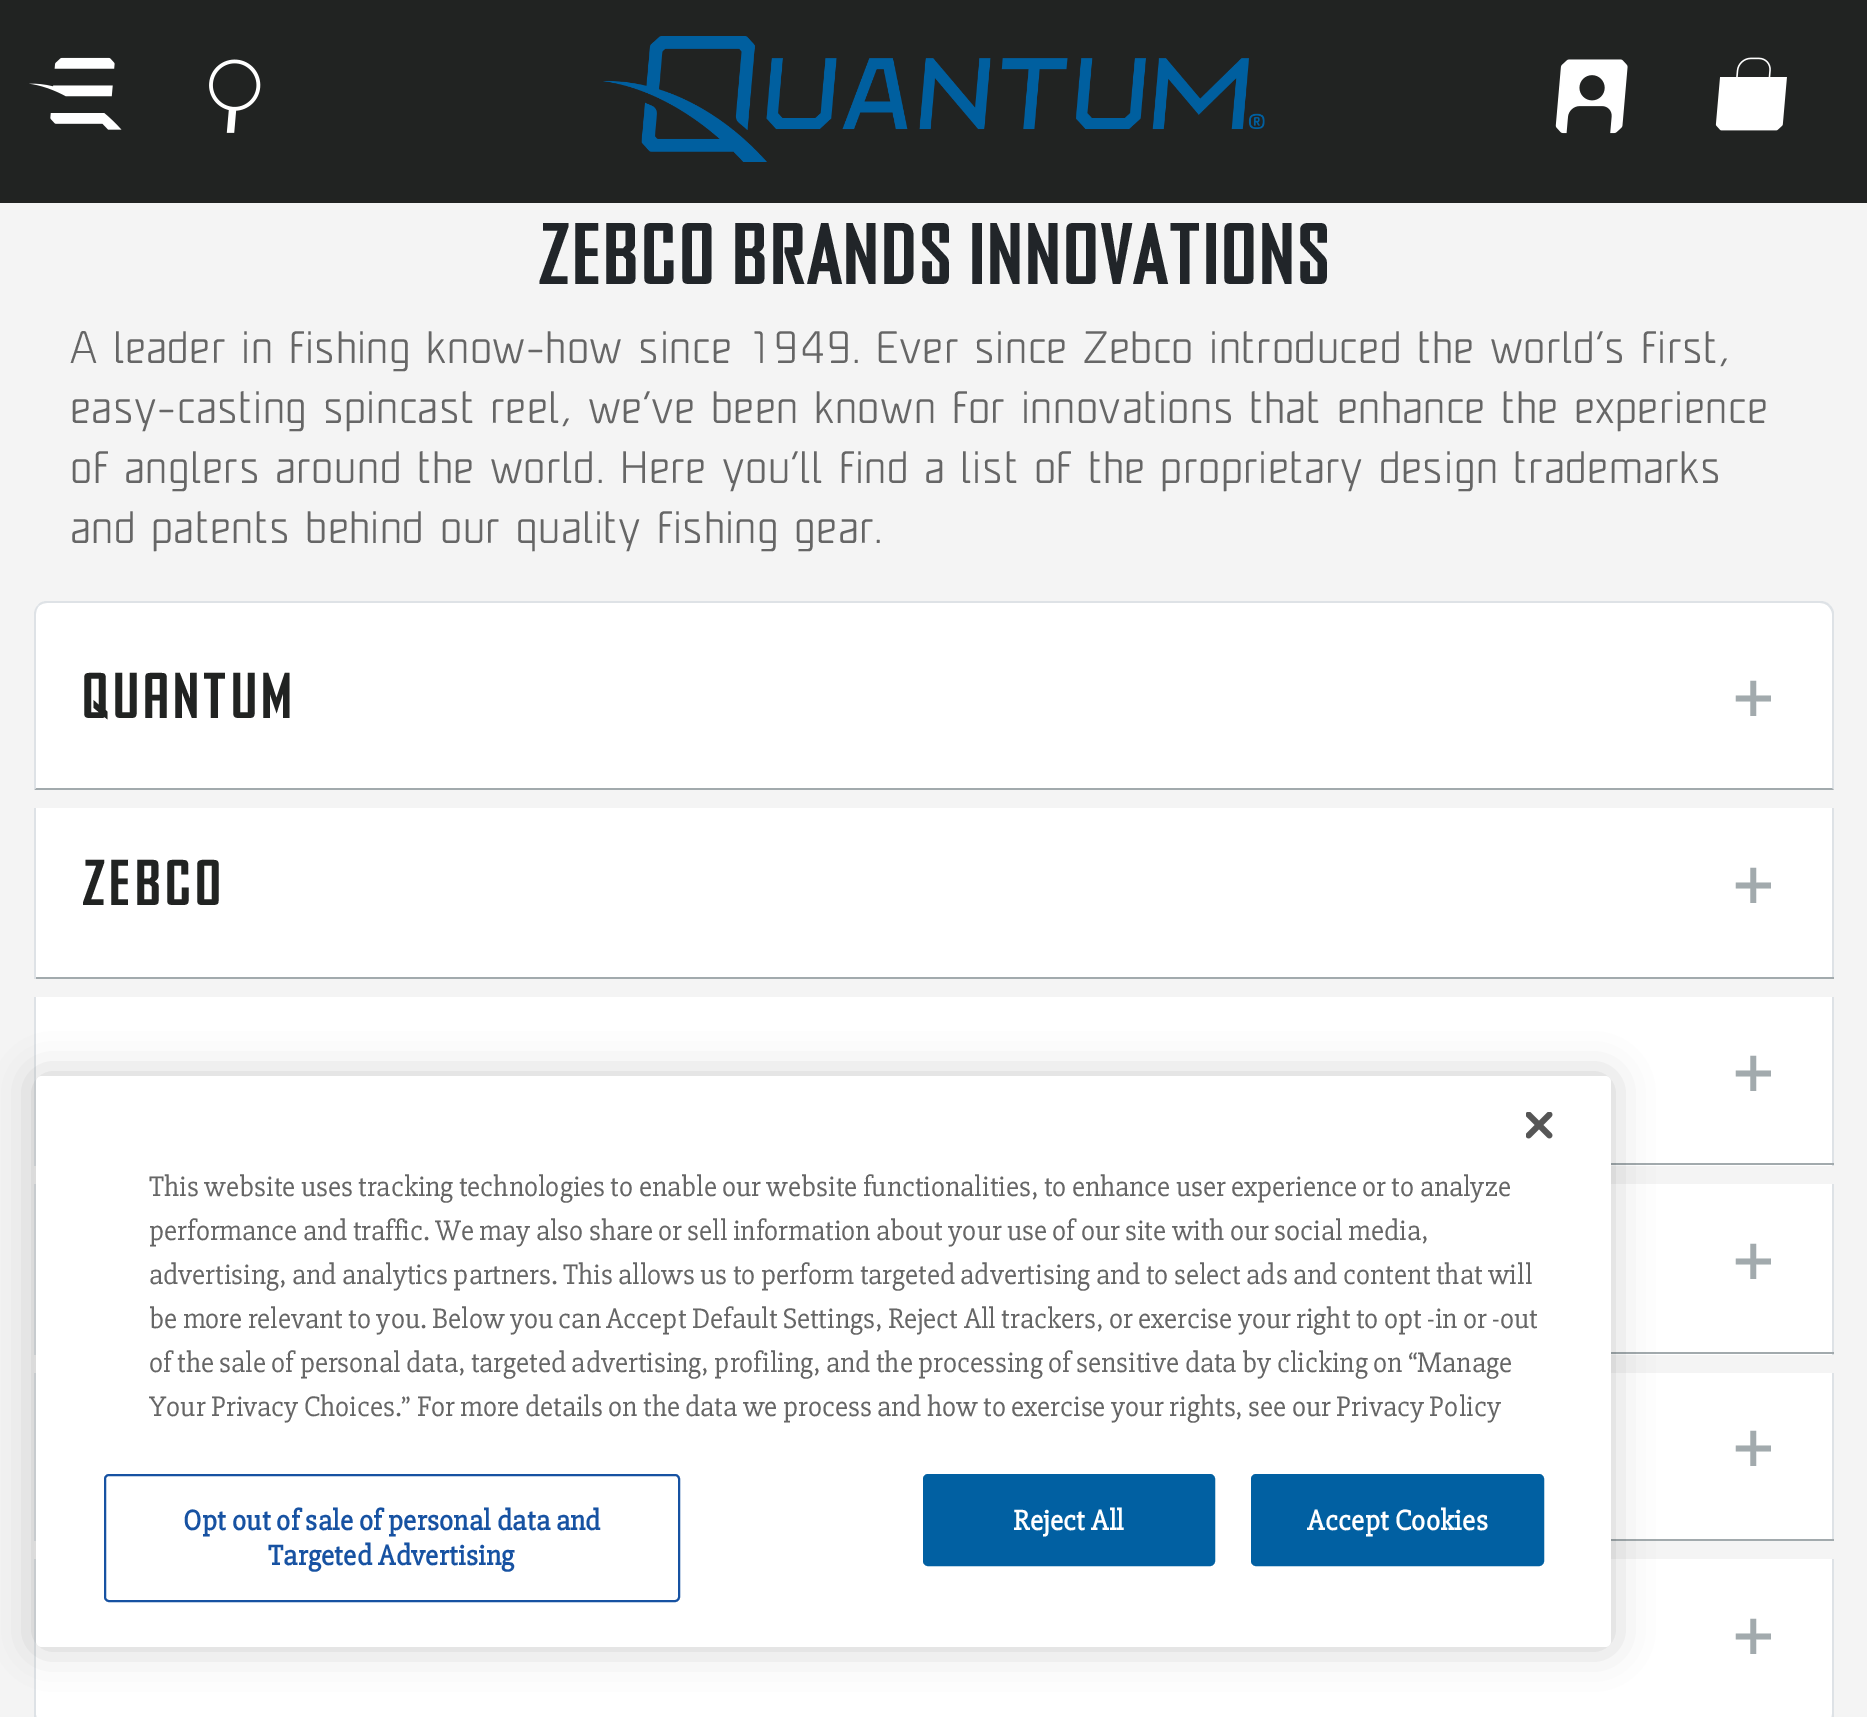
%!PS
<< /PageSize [1867 1717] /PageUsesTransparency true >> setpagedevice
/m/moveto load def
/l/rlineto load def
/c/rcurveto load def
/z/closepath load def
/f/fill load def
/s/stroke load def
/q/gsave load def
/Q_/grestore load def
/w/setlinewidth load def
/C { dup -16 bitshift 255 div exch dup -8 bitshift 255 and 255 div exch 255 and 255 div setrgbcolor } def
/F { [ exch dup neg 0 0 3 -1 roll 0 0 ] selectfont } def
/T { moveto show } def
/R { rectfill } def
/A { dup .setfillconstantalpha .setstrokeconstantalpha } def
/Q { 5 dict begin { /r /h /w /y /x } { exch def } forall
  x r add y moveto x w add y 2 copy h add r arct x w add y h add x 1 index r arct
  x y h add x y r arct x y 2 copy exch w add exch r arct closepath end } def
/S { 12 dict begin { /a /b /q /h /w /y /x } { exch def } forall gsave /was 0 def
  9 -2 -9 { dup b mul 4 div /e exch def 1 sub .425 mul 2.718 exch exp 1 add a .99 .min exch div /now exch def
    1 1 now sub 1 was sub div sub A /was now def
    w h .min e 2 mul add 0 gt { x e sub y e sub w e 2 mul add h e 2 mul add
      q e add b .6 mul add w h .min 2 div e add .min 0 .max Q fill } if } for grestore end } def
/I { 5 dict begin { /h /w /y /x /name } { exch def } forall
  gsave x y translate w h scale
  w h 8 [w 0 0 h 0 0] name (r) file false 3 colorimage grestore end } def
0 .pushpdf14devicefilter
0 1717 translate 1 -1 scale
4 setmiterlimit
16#F4F4F4 C
0 0 1867 1717 R
16#212322 C
0 0 1867 203 R
(1.rgb) 29 57 93 73 I
(2.rgb) 209 59 52 74 I
(3.rgb) 603 36 662 126 I
(4.rgb) 1555 59 73 75 I
(5.rgb) 1715 57 72 74 I
/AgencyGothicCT-Bold 87.25 F
16#212529 C
(ZEBCO BRANDS INNOVATIONS) 537 284 T
/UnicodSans-Light 42.75 F
16#666666 C
70 363 m .55 0 (A leader in fishing know-how since 1949. Ever since Zebco introduced the world’s first,) ashow
70 423 m .55 0 (easy-casting spincast reel, we’ve been known for innovations that enhance the experience) ashow
70 483 m .55 0 (of anglers around the world. Here you’ll find a list of the proprietary design trademarks) ashow
70 543 m .55 0 (and patents behind our quality fishing gear.) ashow
16#FFFFFF C
48 601 m 1772 0 l 7.5 0 14 6.5 14 14 c 0 175 l -1800 0 l 0 -175 l 0 -7.5 6.5 -14 14 -14 c z f
16#DEE2E6 C
47 601 m -3 0 -7 1 -9 4 c 1 1 l 2 -2 5 -3 8 -3 c 1773 0 l 3 0 6 1 8 3 c 2 -1 l -3 -3 -6 -4 -10 -4 c z f
1830 605 m 2 2 3 4 4 7 c 0 178 l -2 -2 l 0 -174 l 0 -3 -2 -6 -4 -8 c z f
16#A2AAAD C
1834 790 m -1800 0 l 2 -2 l 1796 0 l z f
16#DEE2E6 C
38 605 m -2 2 -4 5 -4 9 c 0 176 l 2 -2 l 0 -174 l 0 -3 1 -6 3 -8 c z f
/AgencyGothicCT-Bold 64.5 F
16#212322 C
81 718 m 2.25 0 (Quantum) ashow
/WenQuanYiZenHei-Bold 64.5 F
16#A2AAAD C
1720 718 m 2.25 0 (＋) ashow
16#FFFFFF C
36 808 1796 169 R
16#DEE2E6 C
1832 808 2 171 R
16#A2AAAD C
34 977 1800 2 R
16#DEE2E6 C
34 808 2 171 R
/AgencyGothicCT-Bold 64.5 F
16#212322 C
81 905 m 2.25 0 (Zebco) ashow
/WenQuanYiZenHei-Bold 64.5 F
16#A2AAAD C
1720 905 m 2.25 0 (＋) ashow
16#FFFFFF C
36 997 1796 169 R
16#DEE2E6 C
1832 997 2 169 R
16#A2AAAD C
1611 1163 223 2 R
16#DEE2E6 C
34 997 2 169 R
16#A2AAAD C
1720 1093 m 2.25 0 (＋) ashow
16#FFFFFF C
1611 1184 221 171 R
16#DEE2E6 C
1832 1184 2 171 R
16#A2AAAD C
1611 1352 223 2 R
16#DEE2E6 C
34 1184 2 171 R
16#A2AAAD C
1720 1281 m 2.25 0 (＋) ashow
16#FFFFFF C
1611 1373 221 166 R
16#DEE2E6 C
1832 1373 2 168 R
16#A2AAAD C
1611 1539 223 2 R
16#DEE2E6 C
34 1373 2 168 R
16#A2AAAD C
1720 1468 m 2.25 0 (＋) ashow
16#FFFFFF C
34 1559 m 1800 0 l 0 155 l 0 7.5 -6.5 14 -14 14 c -1772 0 l -7.5 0 -14 -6.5 -14 -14 c z f
16#DEE2E6 C
1834 1559 m 0 158 l -1 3 -2 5 -4 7 c -2 -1 l 3 -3 4 -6 4 -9 c 0 -155 l z f
38 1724 m -3 -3 -4 -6 -4 -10 c 0 -155 l 2 0 l 0 155 l 0 3 1 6 3 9 c z f
16#A2AAAD C
1720 1656 m 2.25 0 (＋) ashow
16#000000 C
36 1076 1575 571 6 20 .2 S
16#FFFFFF C
36 1076 1575 571 6 Q f
(6.rgb) 1526 1112 27 27 I
/Slabo27px-Regular 29.25 F
16#666666 C
(This website uses tracking technologies to enable our website functionalities, to enhance user experience or to analyze) 149 1196 T
(performance and traffic. We may also share or sell information about your use of our site with our social media,) 149 1240 T
(advertising, and analytics partners. This allows us to perform targeted advertising and to select ads and content that will) 149 1284 T
(be more relevant to you. Below you can Accept Default Settings, Reject All trackers, or exercise your right to opt -in or -out) 149 1328 T
(of the sale of personal data, targeted advertising, profiling, and the processing of sensitive data by clicking on “Manage) 149 1372 T
(Your Privacy Choices.” For more details on the data we process and how to exercise your rights, see our Privacy Policy) 149 1416 T
16#1752A2 C
2 w
105 1475 574 126 4 Q s
/Slabo27px-Bold 29.25 F
183 1530 m .3 0 (Opt out of sale of personal data and) ashow
268 1565 m .3 0 (Targeted Advertising) ashow
16#0160A2 C
924 1475 290 90 4 Q q f Q_
s
16#FFFFFF C
1013 1530 m .3 0 (Reject All) ashow
16#0160A2 C
1252 1475 291 90 4 Q q f Q_
s
16#FFFFFF C
1307 1530 m .3 0 (Accept Cookies) ashow
.poppdf14devicefilter showpage
